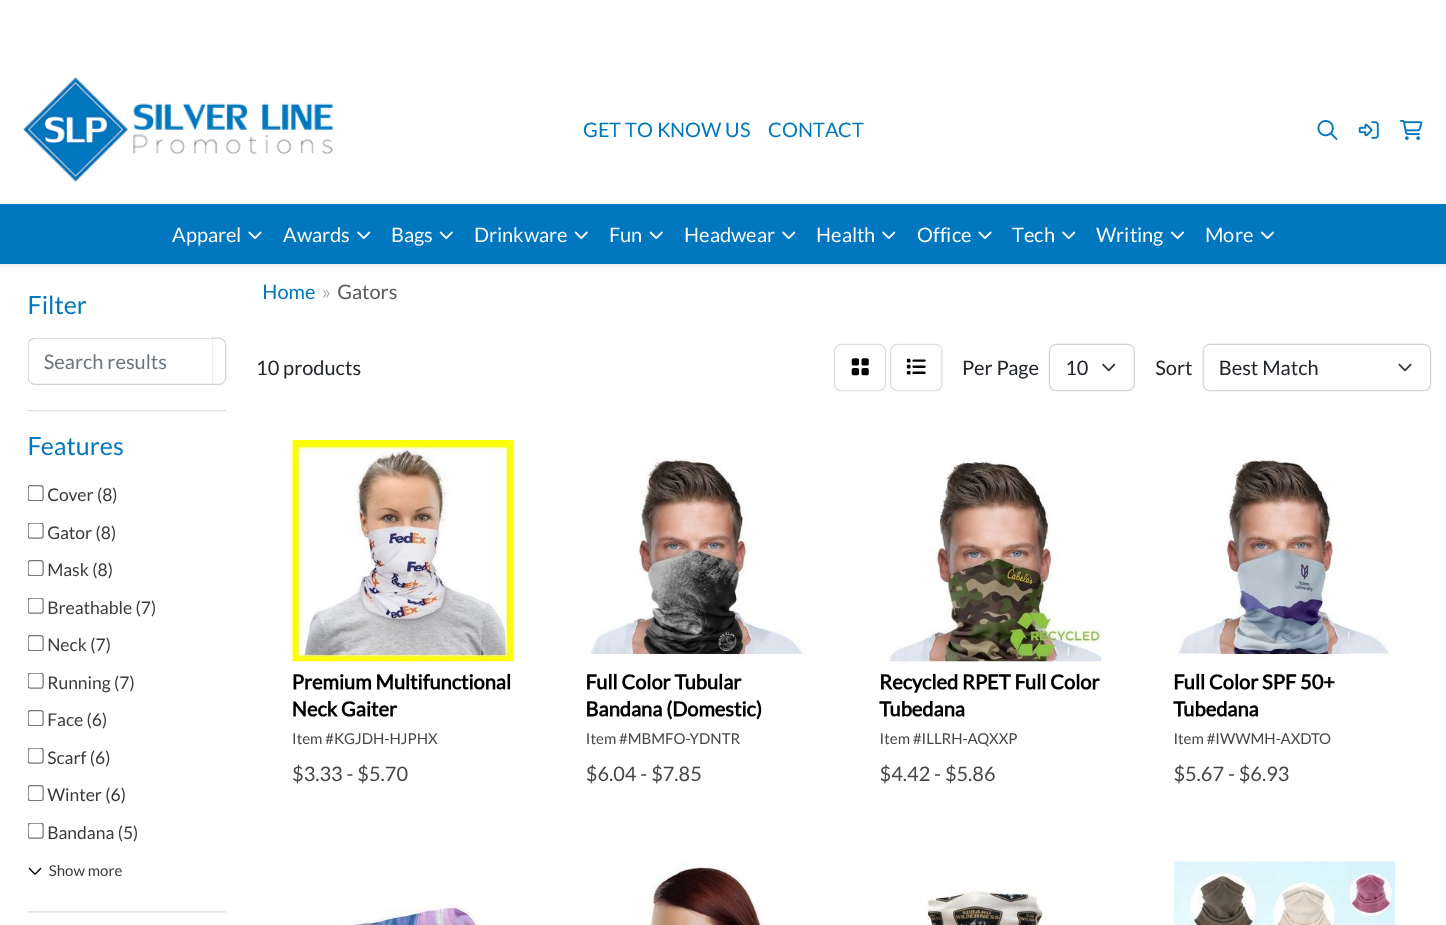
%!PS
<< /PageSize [1446 925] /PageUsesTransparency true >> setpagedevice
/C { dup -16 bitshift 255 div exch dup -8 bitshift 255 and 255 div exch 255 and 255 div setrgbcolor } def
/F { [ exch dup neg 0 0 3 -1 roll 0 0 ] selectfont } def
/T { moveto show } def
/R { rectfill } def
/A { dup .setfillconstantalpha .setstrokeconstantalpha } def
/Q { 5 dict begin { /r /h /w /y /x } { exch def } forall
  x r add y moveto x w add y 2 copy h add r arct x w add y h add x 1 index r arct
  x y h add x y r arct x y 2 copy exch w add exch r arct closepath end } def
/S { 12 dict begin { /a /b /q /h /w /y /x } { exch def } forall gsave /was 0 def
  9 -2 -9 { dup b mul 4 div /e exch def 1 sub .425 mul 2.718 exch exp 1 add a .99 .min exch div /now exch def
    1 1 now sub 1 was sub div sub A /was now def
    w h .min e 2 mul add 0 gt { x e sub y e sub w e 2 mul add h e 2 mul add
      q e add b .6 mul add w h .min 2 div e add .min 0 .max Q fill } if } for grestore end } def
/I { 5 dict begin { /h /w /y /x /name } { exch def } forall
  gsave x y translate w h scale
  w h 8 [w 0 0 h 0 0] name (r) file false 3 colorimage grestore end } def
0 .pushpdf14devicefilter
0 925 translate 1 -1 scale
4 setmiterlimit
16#FFFFFF C
0 0 1446 925 R
(1.rgb) 22 77 312 105 I
/Lato-Regular 20 F
16#0077BE C
(GET TO KNOW US) 583 137 T
(CONTACT) 768 137 T
(2.rgb) 1317 120 21 20 I
(3.rgb) 1358 121 21 18 I
(4.rgb) 1400 120 23 20 I
16#000000 C
0 206 1446 60 0 2.5 .07 S
16#0077BE C
0 204 1446 60 R
16#FFFFFF C
(Apparel) 172 242 T
(5.rgb) 248 231 14 8 I
(Awards) 283 242 T
(6.rgb) 357 231 14 8 I
(Bags) 391 242 T
(7.rgb) 439 231 14 8 I
(Drinkware) 474 242 T
(7.rgb) 574 231 14 8 I
(Fun) 609 242 T
(7.rgb) 649 231 14 8 I
(Headwear) 684 242 T
(6.rgb) 782 231 14 8 I
(Health) 816 242 T
(6.rgb) 882 231 14 8 I
(Office) 917 242 T
(5.rgb) 978 231 14 8 I
(Tech) 1012 242 T
(6.rgb) 1062 231 14 8 I
(Writing) 1096 242 T
(8.rgb) 1171 231 13 8 I
(More) 1205 242 T
(8.rgb) 1261 231 13 8 I
(9.rgb) 27 284 1405 641 I
.poppdf14devicefilter showpage
